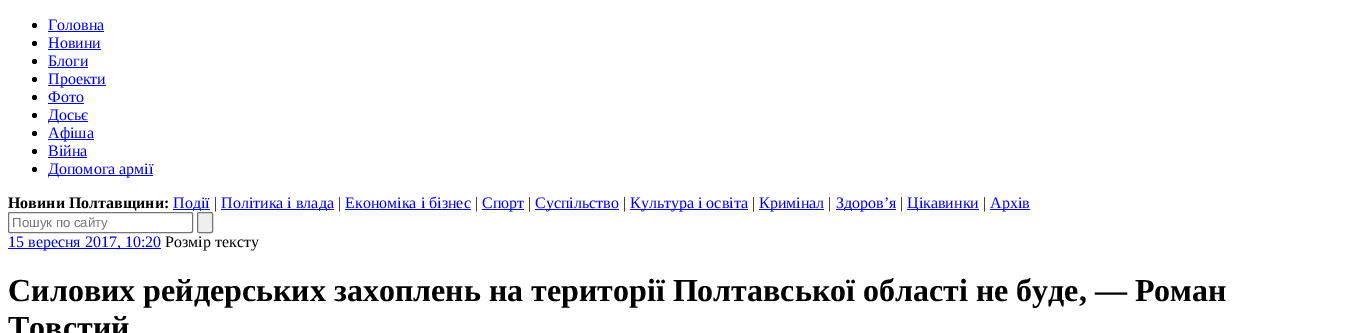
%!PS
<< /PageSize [1354 333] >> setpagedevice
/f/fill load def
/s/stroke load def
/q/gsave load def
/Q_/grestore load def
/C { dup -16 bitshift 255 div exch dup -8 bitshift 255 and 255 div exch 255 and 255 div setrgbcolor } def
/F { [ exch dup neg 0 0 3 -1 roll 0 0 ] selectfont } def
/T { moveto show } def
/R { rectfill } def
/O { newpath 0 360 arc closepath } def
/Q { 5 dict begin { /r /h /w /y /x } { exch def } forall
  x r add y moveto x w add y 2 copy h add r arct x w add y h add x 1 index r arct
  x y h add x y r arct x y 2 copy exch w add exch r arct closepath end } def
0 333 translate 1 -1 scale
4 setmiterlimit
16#FFFFFF C
0 0 1354 333 R
16#000000 C
34.5 25.5 2.5 O f
/LiberationSerif-Regular 16 F
16#0000EE C
(Головна) 48 30 T
48 31 56 1 R
16#000000 C
34.5 43.5 2.5 O f
16#0000EE C
(Новини) 48 48 T
48 49 53 1 R
16#000000 C
34.5 61.5 2.5 O f
16#0000EE C
(Блоги) 48 66 T
48 67 40 1 R
16#000000 C
34.5 79.5 2.5 O f
16#0000EE C
48 85 58 1 R
(Проекти) 48 84 T
16#000000 C
34.5 97.5 2.5 O f
16#0000EE C
(Фото) 48 102 T
48 103 36 1 R
16#000000 C
34.5 115.5 2.5 O f
16#0000EE C
48 121 40 1 R
(Досьє) 48 120 T
16#000000 C
34.5 133.5 2.5 O f
16#0000EE C
48 139 46 1 R
(Афіша) 48 138 T
16#000000 C
34.5 151.5 2.5 O f
16#0000EE C
(Війна) 48 156 T
48 157 39 1 R
16#000000 C
34.5 169.5 2.5 O f
16#0000EE C
48 175 105 1 R
(Допомога армії) 48 174 T
/LiberationSerif-Bold 16 F
16#000000 C
(Новини Полтавщини:) 8 208 T
16#0000EE C
173 209 37 1 R
/LiberationSerif-Regular 16 F
(Події) 173 208 T
16#000000 C
(|) 214 208 T
16#0000EE C
221 209 113 1 R
(Політика і влада) 221 208 T
16#000000 C
(|) 338 208 T
16#0000EE C
(Економіка і бізнес) 345 208 T
345 209 126 1 R
16#000000 C
(|) 475 208 T
16#0000EE C
482 209 42 1 R
(Спорт) 482 208 T
16#000000 C
(|) 528 208 T
16#0000EE C
535 209 84 1 R
(Суспільство) 535 208 T
16#000000 C
(|) 623 208 T
16#0000EE C
630 209 118 1 R
(Культура і освіта) 630 208 T
16#000000 C
(|) 752 208 T
16#0000EE C
759 209 65 1 R
(Кримінал) 759 208 T
16#000000 C
(|) 828 208 T
16#0000EE C
836 209 60 1 R
(Здоров’я) 836 208 T
16#000000 C
(|) 900 208 T
16#0000EE C
907 209 72 1 R
(Цікавинки) 907 208 T
16#000000 C
(|) 983 208 T
16#0000EE C
990 209 40 1 R
(Архів) 990 208 T
16#767676 C
8.5 212.5 184 20 1.5 Q s
/LiberationSans-Regular 13.25 F
16#757575 C
(Пошук по сайту) 12 227 T
16#EFEFEF C
197.5 212.5 15 20 1.5 Q q f Q_
16#767676 C
s
16#0000EE C
8 248 153 1 R
/LiberationSerif-Regular 16 F
(15 вересня 2017, 10:20) 8 247 T
16#000000 C
(Розмір тексту) 165 247 T
/LiberationSerif-Bold 32 F
(Силових рейдерських захоплень на території Полтавської області не буде, — Роман) 8 301 T
(Товстий) 8 338 T
showpage
